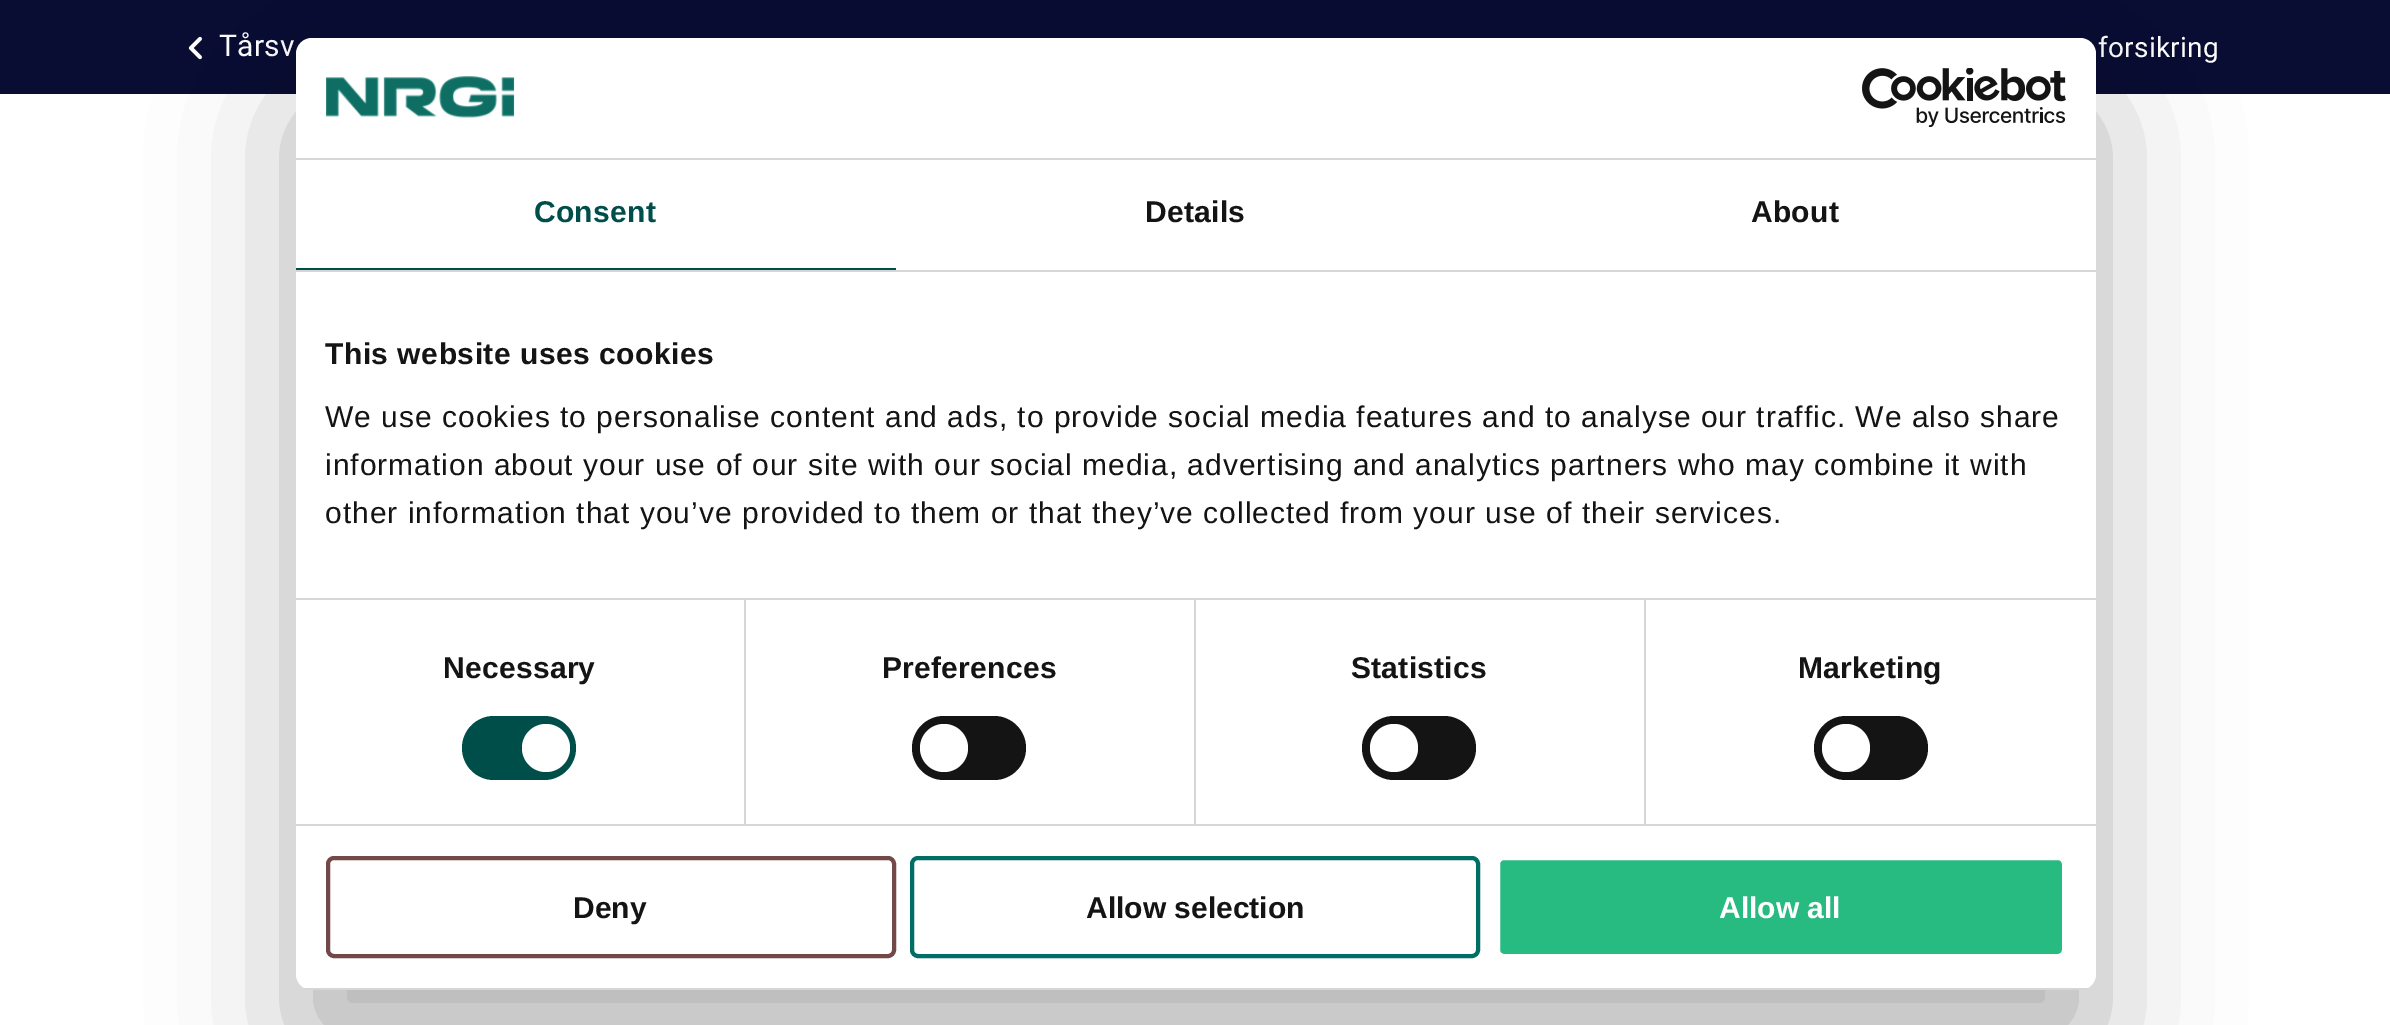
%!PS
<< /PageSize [2390 1025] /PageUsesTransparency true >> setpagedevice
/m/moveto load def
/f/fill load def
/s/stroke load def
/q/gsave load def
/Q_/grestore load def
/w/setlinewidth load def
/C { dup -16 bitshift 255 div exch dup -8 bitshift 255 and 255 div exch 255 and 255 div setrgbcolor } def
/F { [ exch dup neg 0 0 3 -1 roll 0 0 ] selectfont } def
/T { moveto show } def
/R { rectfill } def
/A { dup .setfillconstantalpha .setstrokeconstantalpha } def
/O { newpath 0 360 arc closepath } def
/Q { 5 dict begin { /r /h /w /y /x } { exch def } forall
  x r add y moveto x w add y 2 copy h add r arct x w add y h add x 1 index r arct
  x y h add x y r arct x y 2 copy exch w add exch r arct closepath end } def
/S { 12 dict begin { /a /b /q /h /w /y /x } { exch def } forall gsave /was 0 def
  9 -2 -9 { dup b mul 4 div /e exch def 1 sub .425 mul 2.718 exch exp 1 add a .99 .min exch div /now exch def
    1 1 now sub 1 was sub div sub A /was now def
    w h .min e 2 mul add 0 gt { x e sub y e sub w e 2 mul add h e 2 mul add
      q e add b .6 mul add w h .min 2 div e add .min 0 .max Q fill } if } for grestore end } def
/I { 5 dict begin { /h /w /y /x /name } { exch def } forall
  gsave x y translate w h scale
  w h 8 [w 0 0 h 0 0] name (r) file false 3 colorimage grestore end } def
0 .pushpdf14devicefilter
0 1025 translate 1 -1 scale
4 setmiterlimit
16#FFFFFF C
0 0 2390 1025 R
16#090C33 C
0 0 2390 94 R
(1.rgb) 188 36 14 24 I
/Roboto-Regular 30 F
16#FFFFFF C
219 56 m .25 0 (Tårsv) ashow
/Roboto-Regular 28 F
2098 57 m .25 0 (forsikring) ashow
16#000000 C
296 102 1800 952 16 68 .3 S
16#FFFFFF C
296 38 1800 952 16 Q f
16#D6D6D6 C
296 158 1800 2 R
(2.rgb) 326 76 189 42 I
(3.rgb) 1862 68 204 60 I
296 270 1800 2 R
16#004E4A C
296 268 600 2 R
/LiberationSans-Bold 30 F
534 222 m .25 0 (Consent) ashow
16#141414 C
1145 222 m .25 0 (Details) ashow
1751 222 m .25 0 (About) ashow
16#D6D6D6 C
296 598 1800 2 R
16#141414 C
325 364 m .5 0 (This website uses cookies) ashow
/LiberationSans-Regular 30 F
325 427 m 1 0 (We use cookies to personalise content and ads, to provide social media features and to analyse our traffic. We also share) ashow
325 475 m 1 0 (information about your use of our site with our social media, advertising and analytics partners who may combine it with) ashow
325 523 m 1 0 (other information that you’ve provided to them or that they’ve collected from your use of their services.) ashow
16#D6D6D6 C
296 824 1800 2 R
744 600 2 224 R
/LiberationSans-Bold 30 F
16#141414 C
443 678 m .25 0 (Necessary) ashow
16#004E4A C
462 716 114 64 32 Q f
16#FFFFFF C
546 748 24 O f
16#D6D6D6 C
1194 600 2 224 R
16#141414 C
882 678 m .25 0 (Preferences) ashow
912 716 114 64 32 Q f
16#FFFFFF C
944 748 24 O f
16#D6D6D6 C
1644 600 2 224 R
16#141414 C
1351 678 m .25 0 (Statistics) ashow
1362 716 114 64 32 Q f
16#FFFFFF C
1394 748 24 O f
16#141414 C
1798 678 m .25 0 (Marketing) ashow
1814 716 114 64 32 Q f
16#FFFFFF C
1846 748 24 O f
q
296 38 1800 952 16 Q clip newpath
16#D6D6D6 C
296 988 1800 2 R
Q_
16#734848 C
4 w
328 858 566 98 6 Q s
16#141414 C
(Deny) 573 918 T
16#006E64 C
912 858 566 98 6 Q s
16#141414 C
(Allow selection) 1086 918 T
16#27BA81 C
1498 858 566 98 6 Q q f Q_
16#FFFFFF C
s
(Allow all) 1719 918 T
.poppdf14devicefilter showpage
